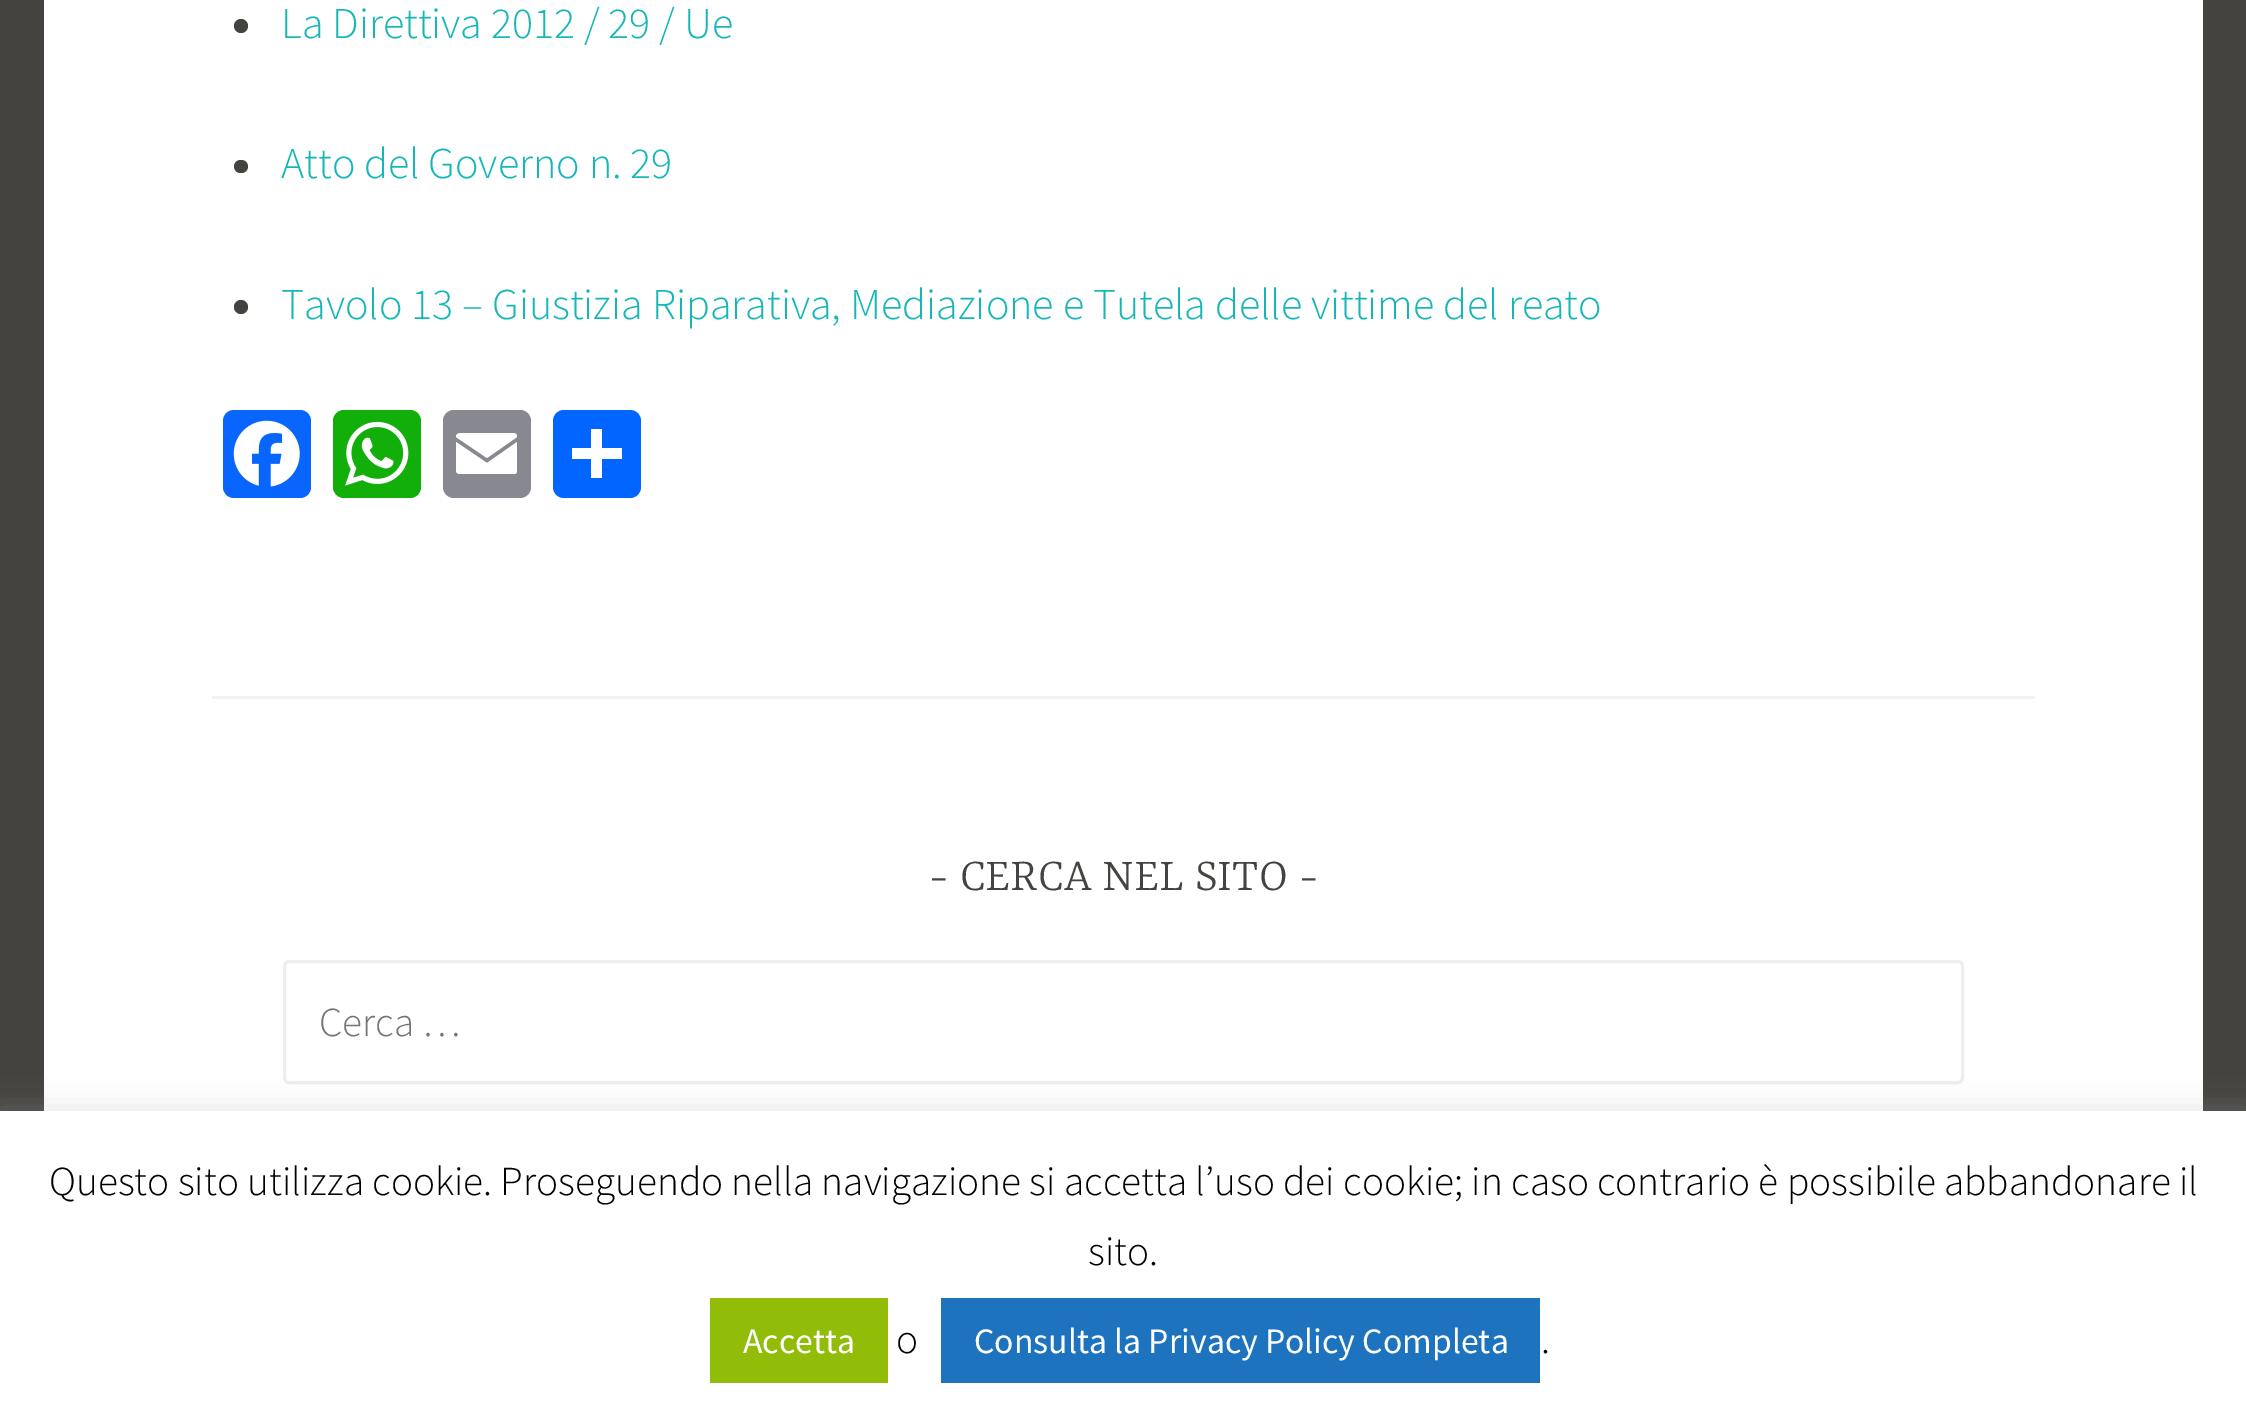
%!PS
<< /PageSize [2246 1414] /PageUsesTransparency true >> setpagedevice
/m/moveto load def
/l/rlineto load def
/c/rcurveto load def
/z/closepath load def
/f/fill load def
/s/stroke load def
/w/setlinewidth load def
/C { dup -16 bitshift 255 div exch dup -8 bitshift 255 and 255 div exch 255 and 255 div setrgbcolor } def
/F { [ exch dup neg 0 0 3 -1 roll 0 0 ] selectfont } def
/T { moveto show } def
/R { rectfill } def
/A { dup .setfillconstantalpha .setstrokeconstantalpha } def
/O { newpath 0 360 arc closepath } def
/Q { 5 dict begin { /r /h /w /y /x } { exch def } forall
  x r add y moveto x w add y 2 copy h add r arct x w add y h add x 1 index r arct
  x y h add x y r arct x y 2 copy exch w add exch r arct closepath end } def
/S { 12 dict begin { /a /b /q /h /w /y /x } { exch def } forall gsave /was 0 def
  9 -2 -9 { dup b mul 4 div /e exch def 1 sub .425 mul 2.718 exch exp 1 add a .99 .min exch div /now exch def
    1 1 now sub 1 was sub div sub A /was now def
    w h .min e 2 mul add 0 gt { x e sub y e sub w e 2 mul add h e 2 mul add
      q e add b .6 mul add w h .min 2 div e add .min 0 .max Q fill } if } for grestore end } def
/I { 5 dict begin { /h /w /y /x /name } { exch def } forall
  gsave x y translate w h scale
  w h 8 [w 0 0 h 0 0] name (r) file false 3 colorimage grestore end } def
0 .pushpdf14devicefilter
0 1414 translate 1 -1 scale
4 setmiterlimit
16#444340 C
0 0 2246 1414 R
16#FFFFFF C
44 0 2159 1111 R
16#444340 C
241 26 7 O f
/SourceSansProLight-Light 44 F
16#15B6B8 C
(La Direttiva 2012 / 29 / Ue) 281 38 T
16#444340 C
234 160 14 13 6.5 Q f
16#15B6B8 C
(Atto del Governo n. 29) 281 178 T
16#444340 C
241 307 7 O f
16#15B6B8 C
(Tavolo 13 – Giustizia Riparativa, Mediazione e Tutela delle vittime del reato) 281 319 T
16#0866FF C
223 410 88 88 11 Q f
(1.rgb) 233 420 67 67 I
16#12AF0A C
333 410 88 88 11 Q f
(2.rgb) 345 421 64 65 I
16#888990 C
443 410 88 88 11 Q f
16#FFFFFF C
517 470 m 0 -28 l -30 21 l -31 -21 l 0 28 l 0 3 1 4 5 4 c 51 0 l 4 0 5 0 5 -4 c 517 437 m 0 -3 -1 -4 -5 -4 c -51 0 l -4 0 -5 2 -5 4 c 31 21 l z f
16#0166FF C
553 410 88 88 11 Q f
16#FFFFFF C
591 429 11 49 R
572 448 50 11 R
16#F2F2F2 C
212 696 1823 3 R
/Yrsa-Light 49.5 F
16#444340 C
(- CERCA NEL SITO -) 929 890 T
16#EEEEEE C
3 w
284.5 961.5 1678 121 4.5 Q s
/SourceSansProLight-Light 41.25 F
16#757575 C
(Cerca …) 319 1036 T
16#ACABAB C
0 1108 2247 306 0 14 .3 S
16#FFFFFF C
0 1111 2246 303 R
16#000000 C
(Questo sito utilizza cookie. Proseguendo nella navigazione si accetta l’uso dei cookie; in caso contrario è possibile abbandonare il) 49 1195 T
(sito.) 1088 1265 T
16#91BD09 C
710 1298 178 85 R
/SourceSansPro-Regular 35.75 F
16#FFFFFF C
(Accetta) 743 1353 T
/SourceSansProLight-Light 41.25 F
16#000000 C
(o) 896 1353 T
16#1E73BE C
941 1298 599 85 R
/SourceSansPro-Regular 35.75 F
16#FFFFFF C
(Consulta la Privacy Policy Completa) 974 1353 T
/SourceSansProLight-Light 41.25 F
16#000000 C
(.) 1541 1353 T
.poppdf14devicefilter showpage
